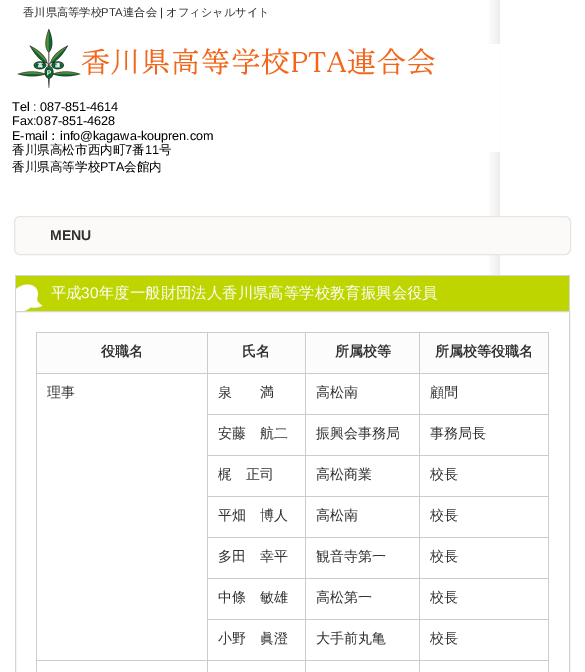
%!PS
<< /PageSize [585 672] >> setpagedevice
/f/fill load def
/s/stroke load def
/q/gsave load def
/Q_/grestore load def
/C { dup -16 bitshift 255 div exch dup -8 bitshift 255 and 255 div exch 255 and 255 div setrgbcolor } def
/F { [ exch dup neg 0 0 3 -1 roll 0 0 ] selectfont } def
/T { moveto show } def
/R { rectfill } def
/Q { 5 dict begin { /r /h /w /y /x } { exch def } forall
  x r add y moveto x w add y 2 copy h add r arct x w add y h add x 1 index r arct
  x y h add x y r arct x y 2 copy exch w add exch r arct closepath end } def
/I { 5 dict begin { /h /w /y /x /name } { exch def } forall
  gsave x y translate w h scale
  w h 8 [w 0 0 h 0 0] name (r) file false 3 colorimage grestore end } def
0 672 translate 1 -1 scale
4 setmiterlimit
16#FFFFFF C
0 0 585 672 R
(1.rgb) 489 0 12 275 I
489 44 11 108 R
/WenQuanYiZenHei-Medium 11.25 F
16#313131 C
(香川県高等学校) 23 16 T
/LiberationSans-Regular 11.25 F
(PTA) 101 16 T
/WenQuanYiZenHei-Medium 11.25 F
(連合会) 123 16 T
/LiberationSans-Regular 11.25 F
(|) 160 16 T
/WenQuanYiZenHei-Medium 11.25 F
(オフィシャルサイト) 166 16 T
(2.rgb) 17 28 418 60 I
/LiberationSans-Regular 12.6 F
16#000000 C
(Tel : 087-851-4614) 12 111 T
(Fax:087-851-4628) 12 125 T
(E-mail) 12 140 T
/WenQuanYiZenHei-Medium 12.6 F
(：) 47 140 T
/LiberationSans-Regular 12.6 F
(info@kagawa-koupren.com) 60 140 T
/WenQuanYiZenHei-Medium 12.6 F
(香川県高松市西内町) 12 154 T
/LiberationSans-Regular 12.6 F
(7) 125 154 T
/WenQuanYiZenHei-Medium 12.6 F
(番) 132 154 T
/LiberationSans-Regular 12.6 F
(11) 145 154 T
/WenQuanYiZenHei-Medium 12.6 F
(号) 159 154 T
(香川県高等学校) 12 171 T
/LiberationSans-Regular 12.6 F
(PTA) 100 171 T
/WenQuanYiZenHei-Medium 12.6 F
(会館内) 124 171 T
16#FBFAF9 C
14.5 216.5 556 38 5.5 Q q f Q_
16#E8E5E0 C
s
/LiberationSans-Bold 14 F
16#313131 C
(MENU) 50 240 T
(3.rgb) 16 276 553 35 I
16#D5D5D5 C
15 275 555 1 R
569 275 1 36 R
15 275 1 36 R
/WenQuanYiZenHei-Medium 15.4 F
16#FFFFFF C
(平成) 51 298 T
/LiberationSans-Regular 15.4 F
(30) 81 298 T
/WenQuanYiZenHei-Medium 15.4 F
(年度一般財団法人香川県高等学校教育振興会役員) 99 298 T
16#D5D5D5 C
15.5 311.5 554 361 rectstroke
16#CCCCCC C
36 332 513 1 R
548 332 1 340 R
36 332 1 340 R
16#FCFCFC C
37 333 170 40 R
16#CCCCCC C
419 660 1 12 R
419 660 130 1 R
419 619 1 42 R
419 619 130 1 R
419 578 1 42 R
419 578 130 1 R
419 537 1 42 R
419 537 130 1 R
419 496 1 42 R
419 496 130 1 R
419 455 1 42 R
419 455 130 1 R
419 414 1 42 R
419 414 130 1 R
419 373 1 42 R
419 373 130 1 R
419 332 1 42 R
305 660 1 12 R
305 660 115 1 R
305 619 1 42 R
305 619 115 1 R
305 578 1 42 R
305 578 115 1 R
305 537 1 42 R
305 537 115 1 R
305 496 1 42 R
305 496 115 1 R
305 455 1 42 R
305 455 115 1 R
305 414 1 42 R
305 414 115 1 R
305 373 1 42 R
305 373 115 1 R
305 332 1 42 R
207 660 1 12 R
207 660 99 1 R
207 619 1 42 R
207 619 99 1 R
207 578 1 42 R
207 578 99 1 R
207 537 1 42 R
207 537 99 1 R
207 496 1 42 R
207 496 99 1 R
207 455 1 42 R
207 455 99 1 R
207 414 1 42 R
207 414 99 1 R
207 373 1 42 R
207 373 99 1 R
207 332 1 42 R
36 373 172 1 R
/WenQuanYiZenHei-Bold 14 F
16#313131 C
(役職名) 101 356 T
16#FCFCFC C
208 333 97 40 R
16#313131 C
(氏名) 242 356 T
16#FCFCFC C
307 333 112 40 R
16#313131 C
(所属校等) 335 356 T
16#FCFCFC C
420 333 128 40 R
16#313131 C
(所属校等役職名) 435 356 T
16#CCCCCC C
36 660 172 1 R
/WenQuanYiZenHei-Medium 14 F
16#313131 C
(理事) 47 397 T
(泉　　満) 218 397 T
(高松南) 316 397 T
(顧問) 430 397 T
(安藤　航二) 218 438 T
(振興会事務局) 316 438 T
(事務局長) 430 438 T
(梶　正司) 218 479 T
(高松商業) 316 479 T
(校長) 430 479 T
(平畑　博人) 218 520 T
(高松南) 316 520 T
(校長) 430 520 T
(多田　幸平) 218 561 T
(観音寺第一) 316 561 T
(校長) 430 561 T
(中條　敏雄) 218 602 T
(高松第一) 316 602 T
(校長) 430 602 T
(小野　眞澄) 218 643 T
(大手前丸亀) 316 643 T
(校長) 430 643 T
showpage
